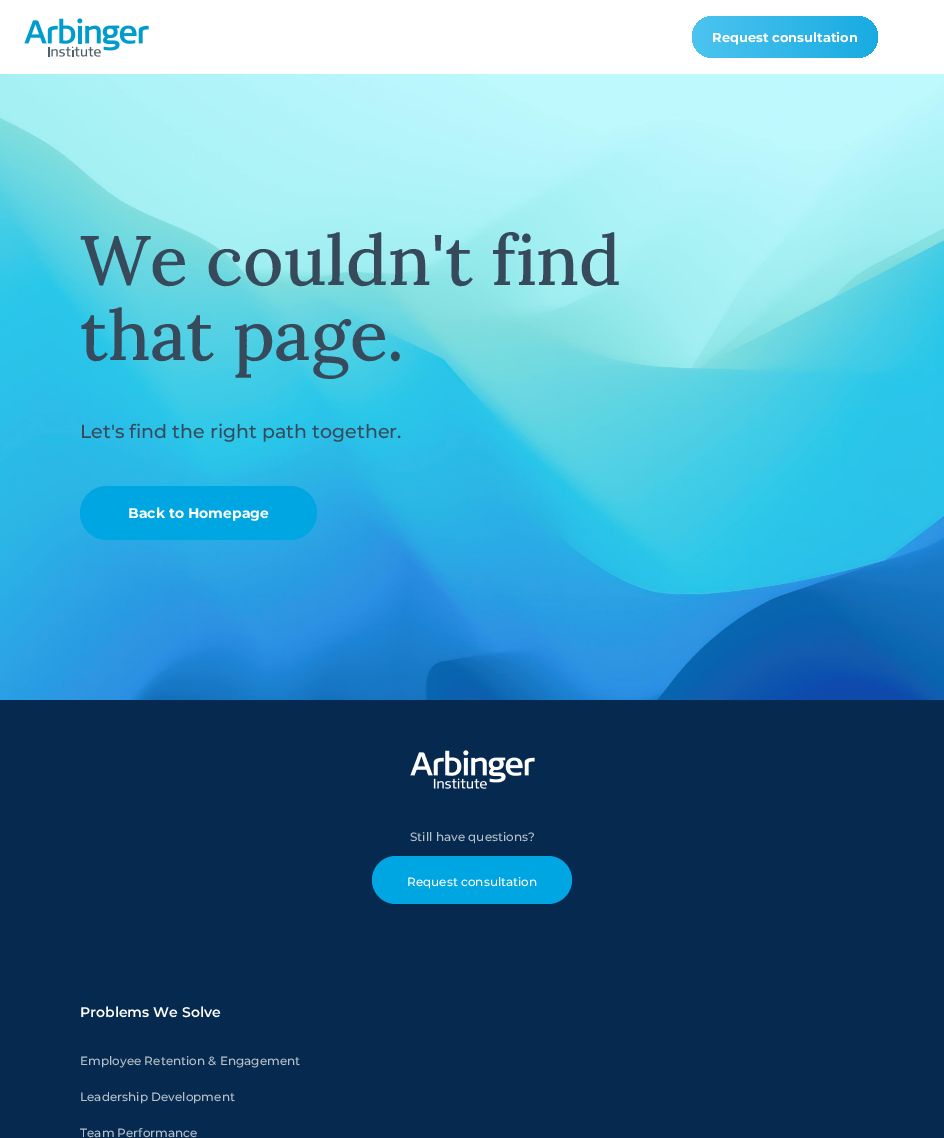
%!PS
<< /PageSize [944 1138] >> setpagedevice
/f/fill load def
/q/gsave load def
/Q_/grestore load def
/C { dup -16 bitshift 255 div exch dup -8 bitshift 255 and 255 div exch 255 and 255 div setrgbcolor } def
/F { [ exch dup neg 0 0 3 -1 roll 0 0 ] selectfont } def
/T { moveto show } def
/R { rectfill } def
/Q { 5 dict begin { /r /h /w /y /x } { exch def } forall
  x r add y moveto x w add y 2 copy h add r arct x w add y h add x 1 index r arct
  x y h add x y r arct x y 2 copy exch w add exch r arct closepath end } def
/I { 5 dict begin { /h /w /y /x /name } { exch def } forall
  gsave x y translate w h scale
  w h 8 [w 0 0 h 0 0] name (r) file false 3 colorimage grestore end } def
0 1138 translate 1 -1 scale
4 setmiterlimit
16#FFFFFF C
0 0 944 1138 R
(1.rgb) 24 18 125 39 I
q 692 16 186 42 21 Q clip newpath
<< /ShadingType 2 /ColorSpace /DeviceRGB /Coords [692 37 878 37] /Extend [true true] /Function << /FunctionType 2 /Domain [0 1] /C0 [.298 .769 .937] /C1 [.094 .671 .886] /N 1 >> >> shfill Q_
/Montserrat-Bold 13 F
(Request consultation) 712 42 T
(2.rgb) 0 74 944 626 I
/Lora-Medium 70 F
16#374A5B C
(We couldn't find) 80 285 T
(that page.) 80 360 T
/Montserrat-Medium 19 F
(Let's find the right path together.) 80 438 T
16#00A6E2 C
80 486 237 54 27 Q f
/Montserrat-Bold 14 F
16#FFFFFF C
(Back to Homepage) 128 518 T
16#06294F C
0 700 944 438 R
(3.rgb) 410 750 125 39 I
/Montserrat-Medium 12 F
16#B8C2CA C
(Still have questions?) 410 841 T
16#00A6E2 C
372 856 200 48 24 Q f
16#FFFFFF C
(Request consultation) 407 886 T
/Montserrat-SemiBold 14 F
(Problems We Solve) 80 1017 T
/Montserrat-Medium 12 F
16#B8C2CA C
(Employee Retention & Engagement) 80 1065 T
(Leadership Development) 80 1101 T
(Team Performance) 80 1137 T
showpage
